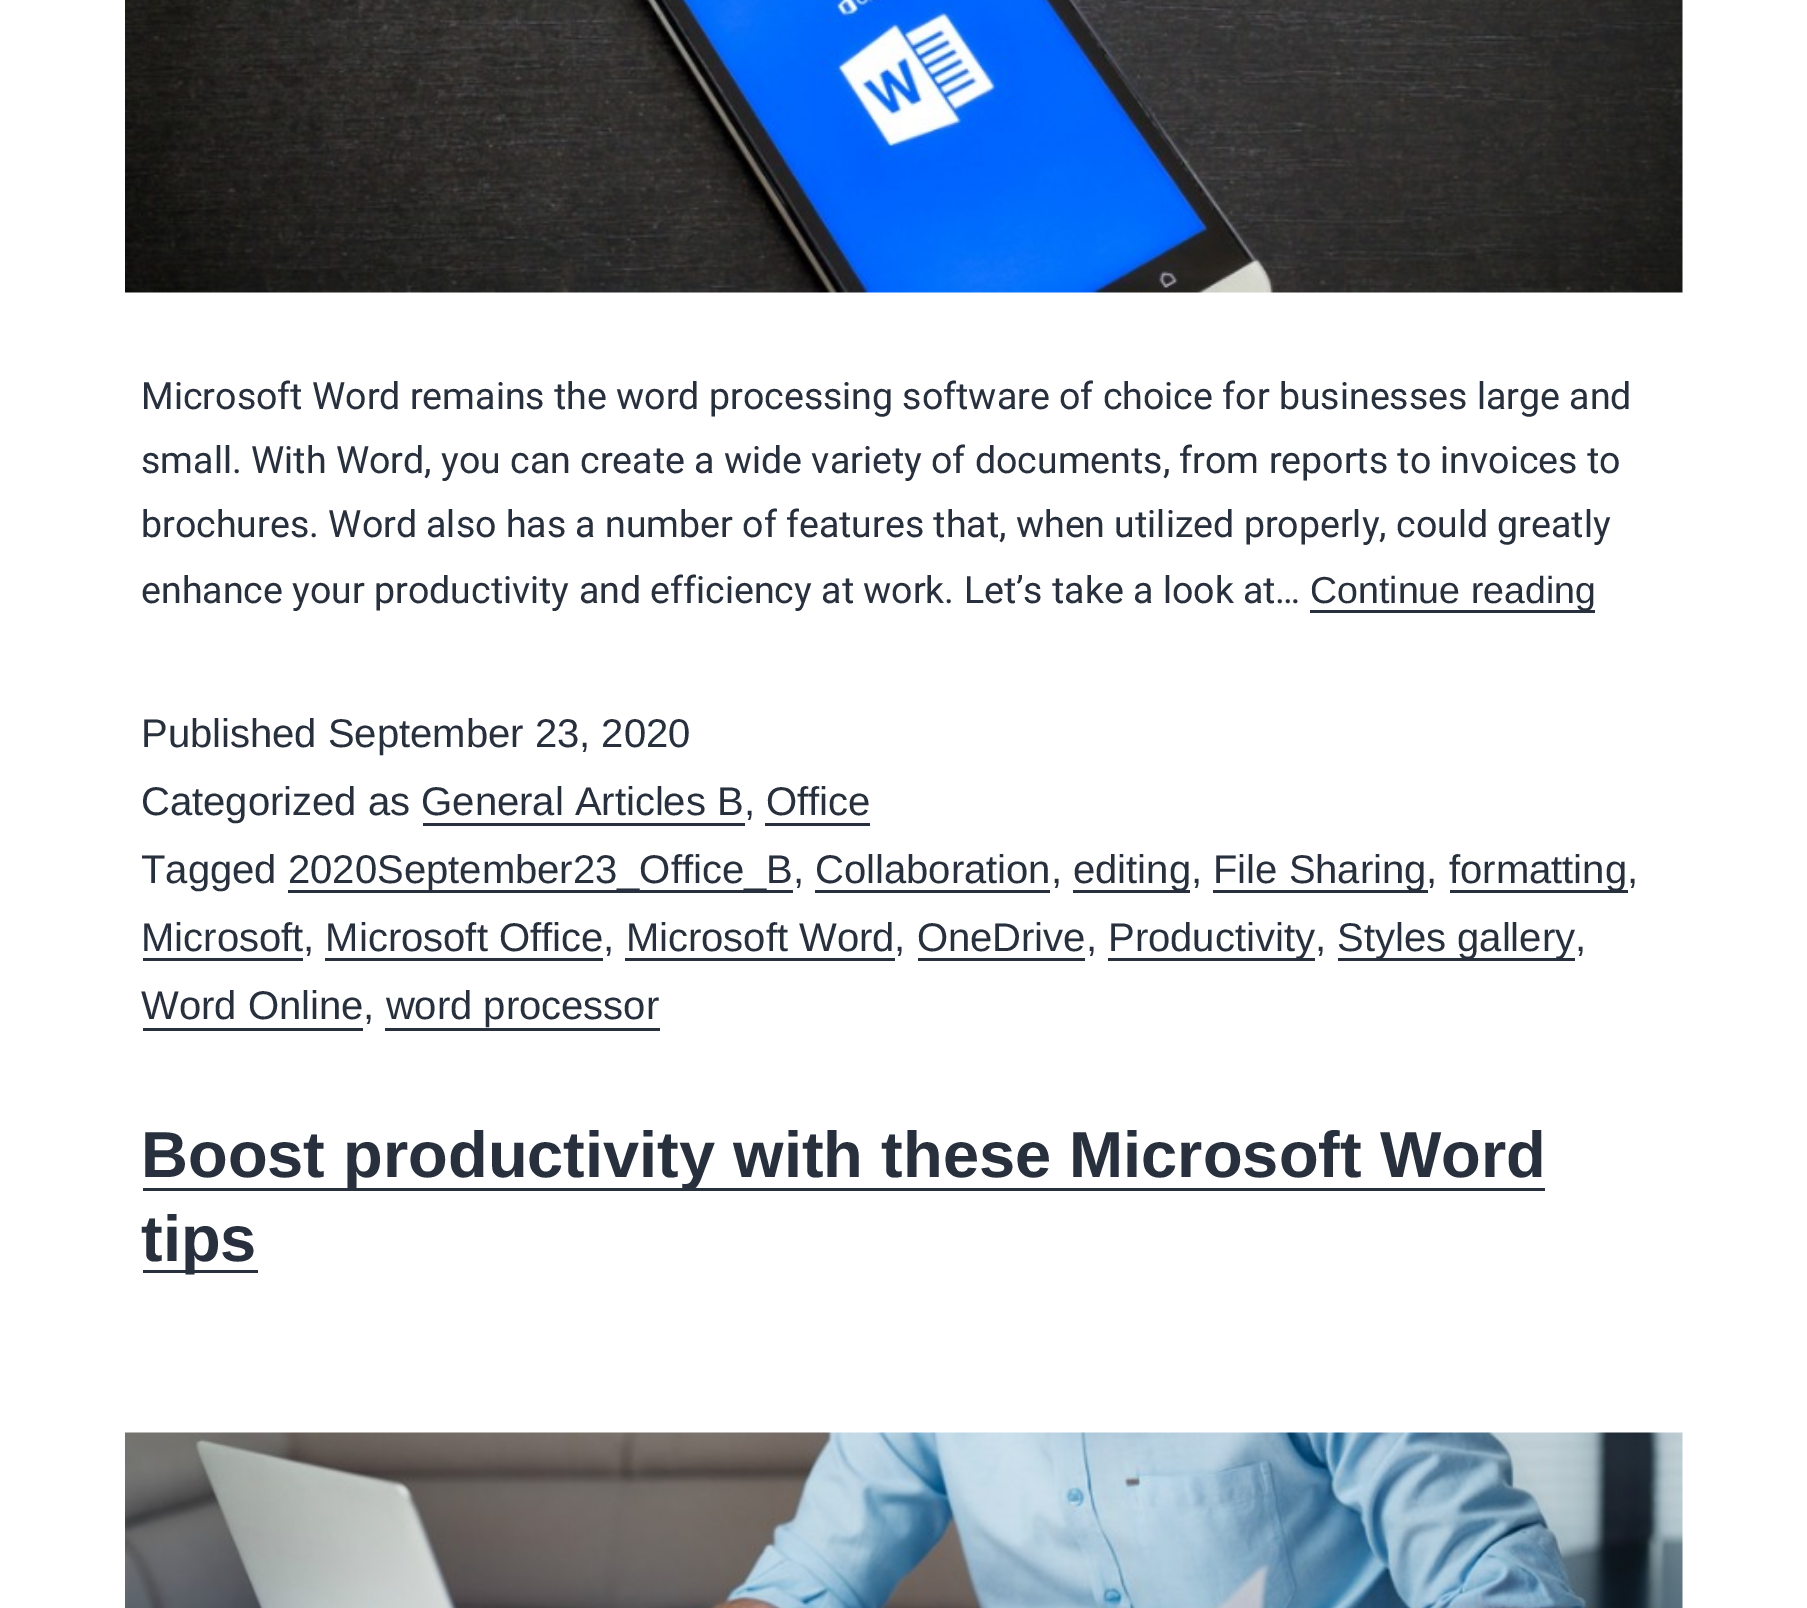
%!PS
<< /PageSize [1807 1608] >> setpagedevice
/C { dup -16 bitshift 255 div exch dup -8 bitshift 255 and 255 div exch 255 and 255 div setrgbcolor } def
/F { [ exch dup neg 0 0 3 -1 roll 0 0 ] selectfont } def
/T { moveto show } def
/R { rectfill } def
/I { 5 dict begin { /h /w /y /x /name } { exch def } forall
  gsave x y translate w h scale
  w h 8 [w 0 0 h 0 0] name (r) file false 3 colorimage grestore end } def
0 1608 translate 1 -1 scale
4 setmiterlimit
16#FFFFFF C
0 0 1807 1608 R
(1.rgb) 125 0 1558 293 I
/Roboto-Regular 37.5 F
16#28303D C
(Microsoft Word remains the word processing software of choice for businesses large and) 141 409 T
(small. With Word, you can create a wide variety of documents, from reports to invoices to) 141 473 T
(brochures. Word also has a number of features that, when utilized properly, could greatly) 141 537 T
(enhance your productivity and efficiency at work. Let’s take a look at…) 141 603 T
1310 610 285 3 R
/LiberationSans-Regular 37.5 F
(Continue reading) 1310 603 T
/LiberationSans-Regular 40 F
(Published September 23, 2020) 141 747 T
(Categorized as General Articles B, Office) 141 815 T
423 823 322 3 R
765 823 105 3 R
(Tagged) 141 883 T
288 890 505 3 R
(2020September23_Office_B, Collaboration,) 288 883 T
1073 890 117 3 R
(editing,) 1073 883 T
1213 890 215 3 R
(File Sharing,) 1213 883 T
1450 890 178 3 R
(formatting,) 1449 883 T
815 890 235 3 R
(Microsoft, Microsoft Office, Microsoft Word, OneDrive,) 141 951 T
143 958 160 3 R
1108 958 207 3 R
(Productivity,) 1108 951 T
1338 958 237 3 R
(Styles gallery,) 1337 951 T
325 958 278 3 R
625 958 270 3 R
918 958 167 3 R
(Word Online, word processor) 141 1019 T
143 1028 220 3 R
385 1028 275 3 R
143 1188 1402 3 R
/LiberationSans-Bold 65 F
(Boost productivity with these Microsoft Word) 141 1177 T
143 1270 115 3 R
(tips) 141 1261 T
(2.rgb) 125 1432 1558 176 I
showpage
